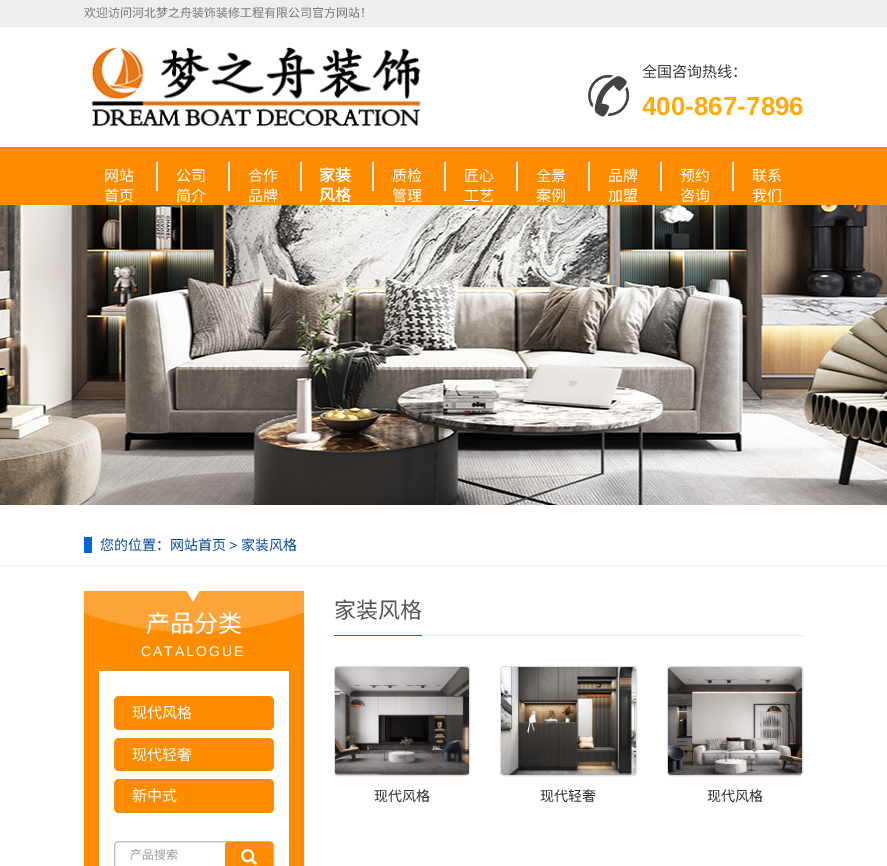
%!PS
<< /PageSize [887 866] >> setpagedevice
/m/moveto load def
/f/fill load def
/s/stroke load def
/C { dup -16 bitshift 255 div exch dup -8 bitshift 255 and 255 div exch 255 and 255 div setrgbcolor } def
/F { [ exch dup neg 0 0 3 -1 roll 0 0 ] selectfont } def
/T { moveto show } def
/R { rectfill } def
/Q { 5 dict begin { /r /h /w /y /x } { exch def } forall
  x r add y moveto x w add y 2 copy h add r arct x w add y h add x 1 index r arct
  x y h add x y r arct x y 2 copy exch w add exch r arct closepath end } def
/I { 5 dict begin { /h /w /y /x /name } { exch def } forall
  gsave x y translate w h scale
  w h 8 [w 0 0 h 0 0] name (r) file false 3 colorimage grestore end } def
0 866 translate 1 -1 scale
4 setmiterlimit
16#FFFFFF C
0 0 887 866 R
16#EEEEEE C
0 0 887 27 R
/NotoSansCJKSC-Regular 12 F
16#777777 C
(欢迎访问河北梦之舟装饰装修工程有限公司官方网站！) 84 17 T
(1.rgb) 91 47 330 80 I
(2.rgb) 587 74 43 43 I
/NotoSansCJKSC-Regular 15 F
16#3C3C3C C
(全国咨询热线：) 642 77 T
/LiberationSans-Bold 26 F
16#FFAA0F C
(400-867-7896) 642 115 T
16#FD8C00 C
0 147 887 58 R
/NotoSansCJKSC-Regular 15 F
16#FFFFFF C
(网站) 104 181 T
(首页) 104 201 T
16#EEEEEE C
156 162 2 29 R
16#FFFFFF C
(公司) 176 181 T
(简介) 176 201 T
16#EEEEEE C
228 162 2 29 R
16#FFFFFF C
(合作) 248 181 T
(品牌) 248 201 T
16#EEEEEE C
300 162 2 29 R
/NotoSansCJKSC-Bold 16 F
16#FFFFFF C
(家装) 319 181 T
(风格) 319 201 T
16#EEEEEE C
372 162 2 29 R
/NotoSansCJKSC-Regular 15 F
16#FFFFFF C
(质检) 392 181 T
(管理) 392 201 T
16#EEEEEE C
444 162 2 29 R
16#FFFFFF C
(匠心) 464 181 T
(工艺) 464 201 T
16#EEEEEE C
516 162 2 29 R
16#FFFFFF C
(全景) 536 181 T
(案例) 536 201 T
16#EEEEEE C
588 162 2 29 R
16#FFFFFF C
(品牌) 608 181 T
(加盟) 608 201 T
16#EEEEEE C
660 162 2 29 R
16#FFFFFF C
(预约) 680 181 T
(咨询) 680 201 T
16#EEEEEE C
732 162 2 29 R
16#FFFFFF C
(联系) 752 181 T
(我们) 752 201 T
(3.rgb) 0 205 887 300 I
16#F3F3F3 C
0 565 887 1 R
/NotoSansCJKSC-Regular 14 F
16#03499A C
(您的位置：网站首页) 100 550 T
16#0066D9 C
84 537 8 16 R
/LiberationSans-Regular 14 F
16#03499A C
(>) 229 550 T
/NotoSansCJKSC-Regular 14 F
(家装风格) 241 550 T
16#FD8C00 C
84 632 220 234 R
(4.rgb) 84 591 220 41 I
/NotoSansCJKSC-Regular 24 F
16#FFFFFF C
(产品分类) 146 632 T
/LiberationSans-Regular 14 F
141 656 m 2 0 (CATALOGUE) ashow
99 671 190 195 R
16#FD8C00 C
114 696 160 34 5 Q f
/NotoSansCJKSC-Regular 15 F
16#FFFFFF C
(现代风格) 132 718 T
16#FD8C00 C
114 738 160 33 5 Q f
16#FFFFFF C
(现代轻奢) 132 760 T
16#FD8C00 C
114 779 160 34 5 Q f
16#FFFFFF C
(新中式) 132 801 T
16#B9B9B9 C
114.5 841.5 159 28 4.5 Q s
/NotoSansCJKSC-Regular 12 F
16#999999 C
(产品搜索) 130 859 T
16#FD8C00 C
225 842 48 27 3 Q f
(5.rgb) 241 849 17 17 I
16#EBEBEB C
422 635 382 1 R
16#0066D9 C
334 635 88 1 R
/NotoSansCJKSC-Regular 22 F
16#545454 C
(家装风格) 334 618 T
16#DDDDDD C
334.5 666.5 135 109 3.5 Q s
(6.rgb) 335 667 134 108 I
/NotoSansCJKSC-Regular 14 F
16#2F2F2F C
(现代风格) 374 801 T
16#DDDDDD C
500.5 666.5 136 109 3.5 Q s
(7.rgb) 501 667 135 108 I
16#2F2F2F C
(现代轻奢) 540 801 T
16#DDDDDD C
667.5 666.5 135 109 3.5 Q s
(8.rgb) 668 667 134 108 I
16#2F2F2F C
(现代风格) 707 801 T
showpage
